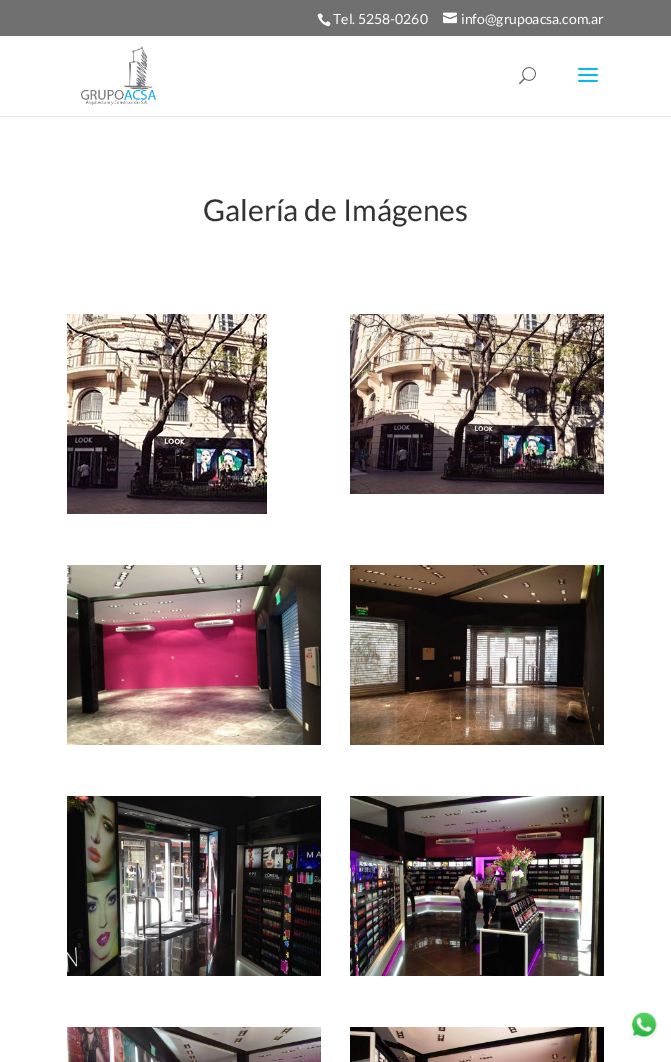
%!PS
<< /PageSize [671 1062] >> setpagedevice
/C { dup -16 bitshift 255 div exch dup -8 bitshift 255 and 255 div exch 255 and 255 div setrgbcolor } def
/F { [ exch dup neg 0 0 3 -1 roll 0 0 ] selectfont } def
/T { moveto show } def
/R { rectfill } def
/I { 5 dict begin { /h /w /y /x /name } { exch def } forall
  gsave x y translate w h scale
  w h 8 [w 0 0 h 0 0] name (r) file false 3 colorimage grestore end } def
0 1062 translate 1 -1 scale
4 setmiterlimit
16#FFFFFF C
0 0 671 1062 R
16#707070 C
0 0 671 36 R
(1.rgb) 317 13 14 14 I
/Lato-Regular 14 F
16#FFFFFF C
(Tel. 5258-0260) 333 24 T
(2.rgb) 443 12 14 12 I
(info@grupoacsa.com.ar) 461 24 T
16#E6E6E6 C
0 116 671 1 R
(3.rgb) 81 46 75 59 I
(4.rgb) 519 67 17 18 I
(5.rgb) 578 68 20 14 I
/Lato-Regular 30 F
16#333333 C
(Galería de Imágenes) 203 221 T
(6.rgb) 67 314 200 200 I
(7.rgb) 350 314 254 180 I
(8.rgb) 67 565 254 180 I
(9.rgb) 350 565 254 180 I
(10.rgb) 67 796 254 180 I
(11.rgb) 350 796 254 180 I
(12.rgb) 67 1027 254 35 I
(13.rgb) 350 1027 254 35 I
(14.rgb) 629 1012 30 28 I
showpage
